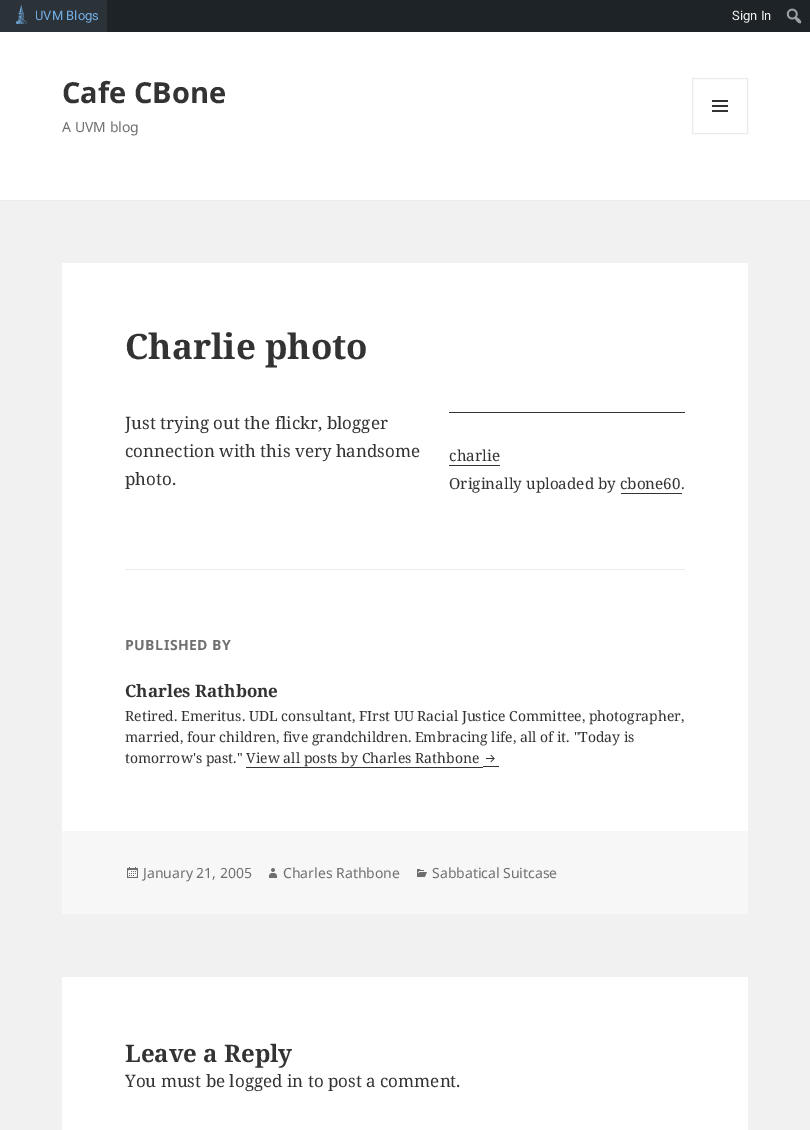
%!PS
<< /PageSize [810 1130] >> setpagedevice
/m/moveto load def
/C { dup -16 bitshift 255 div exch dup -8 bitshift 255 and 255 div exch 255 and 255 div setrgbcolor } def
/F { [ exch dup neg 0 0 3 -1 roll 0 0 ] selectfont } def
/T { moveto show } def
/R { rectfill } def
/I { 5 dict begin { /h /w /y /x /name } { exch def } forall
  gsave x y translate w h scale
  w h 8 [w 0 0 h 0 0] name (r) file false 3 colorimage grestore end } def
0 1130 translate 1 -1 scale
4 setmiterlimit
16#F1F1F1 C
0 0 810 1130 R
16#1D2327 C
107 0 703 32 R
16#2C3338 C
0 0 107 32 R
(1.rgb) 15 5 12 19 I
/Roboto-Regular 13 F
16#72AEE6 C
(UVM Blogs) 35 20 T
16#F0F0F1 C
(Sign In) 732 20 T
(2.rgb) 786 8 16 16 I
16#FFFFFF C
0 32 810 168 R
16#EBEBEB C
0 200 810 1 R
/NotoSans-Bold 29 F
16#333333 C
(Cafe CBone) 62 103 T
16#EBEBEB C
692.5 78.5 55 55 rectstroke
(3.rgb) 712 100 16 12 I
/NotoSans-Regular 14 F
16#707070 C
(A UVM blog) 62 132 T
16#FFFFFF C
62 263 686 568 R
/NotoSerif-Bold 35 F
16#333333 C
(Charlie photo) 125 359 T
/NotoSerif-Regular 17 F
(Just trying out the flickr, blogger) 125 429 T
(connection with this very handsome) 125 457 T
(photo.) 125 485 T
449 412 236 1 R
/NotoSerif-Regular 15.25 F
(charlie) 449 461 T
449 465 51 1 R
(Originally uploaded by cbone60.) 449 489 T
621 493 61 1 R
16#EBEBEB C
125 569 560 1 R
/NotoSans-Bold 14 F
16#707070 C
125 650 m .5 0 (PUBLISHED BY) ashow
/NotoSerif-Bold 17 F
16#333333 C
(Charles Rathbone) 125 697 T
/NotoSerif-Regular 14 F
(Retired. Emeritus. UDL consultant, FIrst UU Racial Justice Committee, photographer,) 125 721 T
(married, four children, five grandchildren. Embracing life, all of it. "Today is) 125 742 T
(tomorrow's past." View all posts by Charles Rathbone) 125 763 T
246 767 237 1 R
483 766 16 1 R
(4.rgb) 486 754 9 9 I
16#F7F7F7 C
62 831 686 83 R
(5.rgb) 127 867 11 11 I
/NotoSans-Regular 14 F
16#707070 C
(January 21, 2005) 143 878 T
(6.rgb) 269 868 8 10 I
(Charles Rathbone) 283 878 T
(7.rgb) 417 869 10 8 I
(Sabbatical Suitcase) 432 878 T
16#FFFFFF C
62 977 686 153 R
/NotoSerif-Bold 24 F
16#333333 C
(Leave a Reply) 125 1062 T
/NotoSerif-Regular 17 F
(You must be logged in to post a comment.) 125 1087 T
showpage
